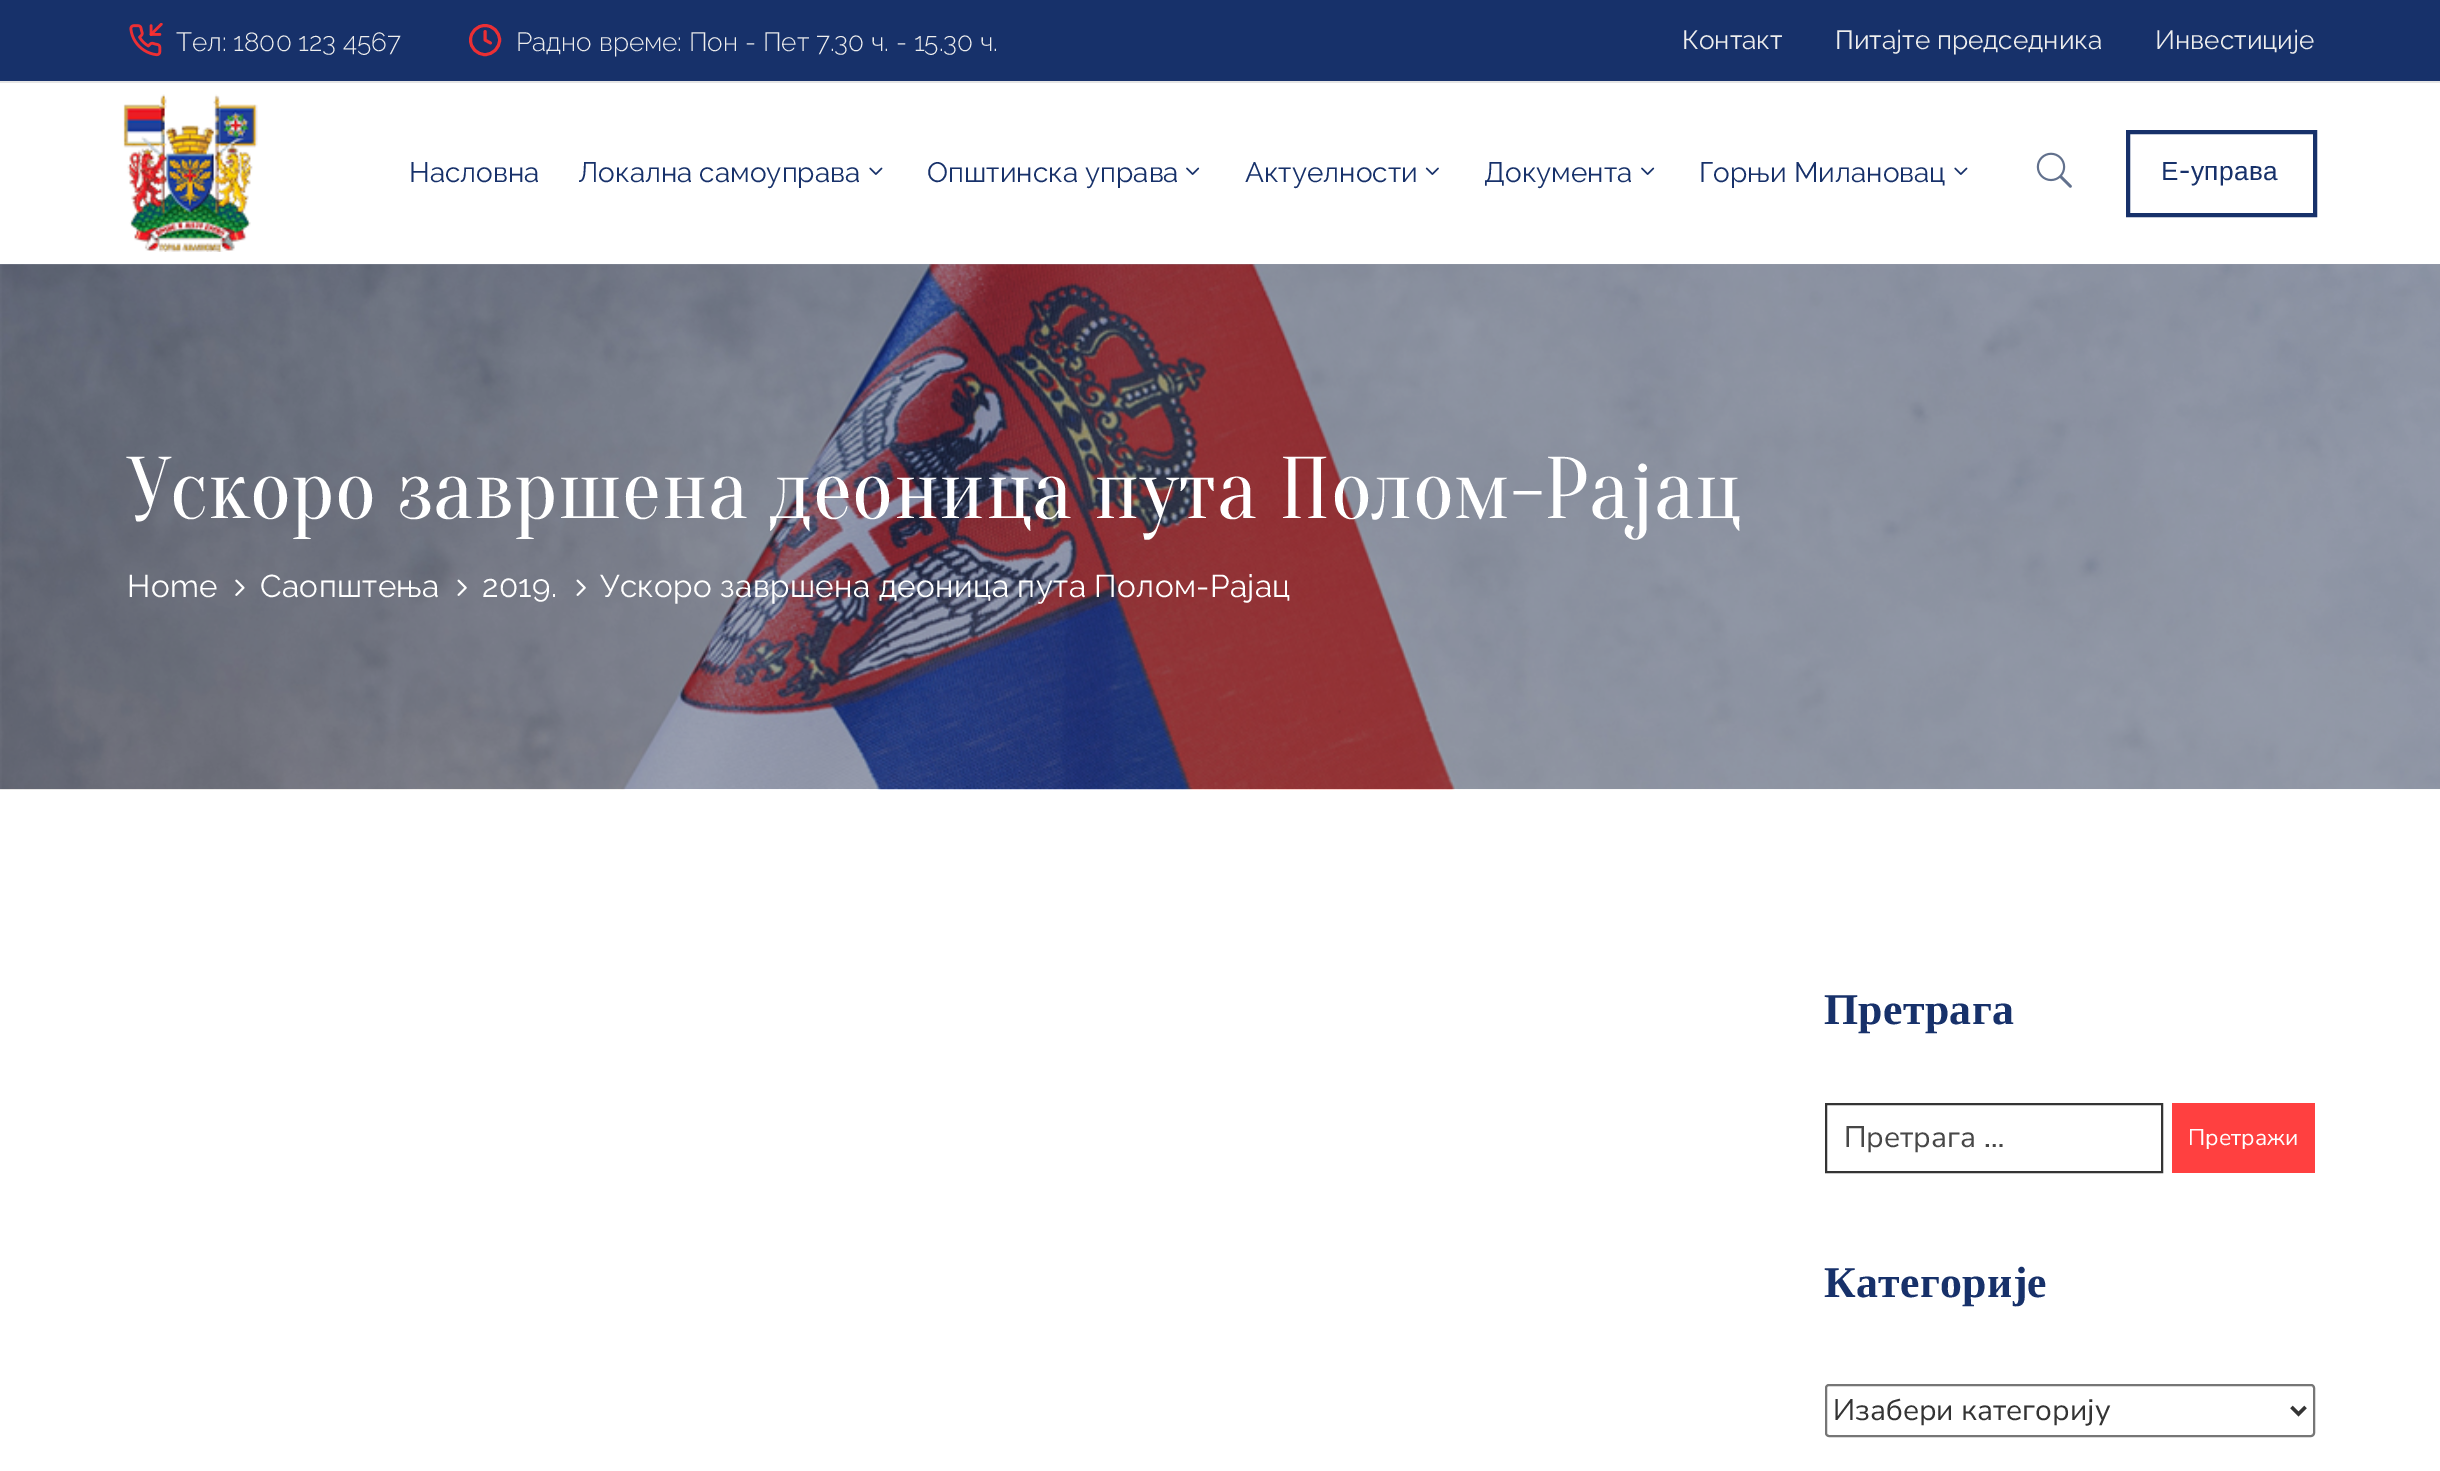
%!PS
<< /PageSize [2440 1471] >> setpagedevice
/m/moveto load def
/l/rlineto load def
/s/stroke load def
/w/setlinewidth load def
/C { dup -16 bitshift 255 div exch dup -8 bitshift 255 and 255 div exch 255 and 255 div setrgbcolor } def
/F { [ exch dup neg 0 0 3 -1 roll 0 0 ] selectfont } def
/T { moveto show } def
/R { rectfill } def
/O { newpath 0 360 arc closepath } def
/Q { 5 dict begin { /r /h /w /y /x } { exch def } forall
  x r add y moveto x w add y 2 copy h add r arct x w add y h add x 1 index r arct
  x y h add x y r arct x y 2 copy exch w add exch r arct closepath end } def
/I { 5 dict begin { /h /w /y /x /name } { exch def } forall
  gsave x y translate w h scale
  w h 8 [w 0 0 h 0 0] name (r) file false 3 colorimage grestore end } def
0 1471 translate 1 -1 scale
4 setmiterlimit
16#FFFFFF C
0 0 2440 1471 R
16#17316A C
0 0 2440 81 R
16#E5E5E5 C
0 81 2440 2 R
(1.rgb) 129 23 34 34 I
/Raleway-Light 26.25 F
16#EEEEEE C
(Тел: 1800 123 4567) 176 51 T
16#EC2F34 C
2.9 w
485 40 14.5 O s
1 setlinecap
1 setlinejoin
485 31.5 m 0 8.5 l 5.5 3 l s
16#EEEEEE C
(Радно време: Пон - Пет 7.30 ч. - 15.30 ч.) 516 51 T
/Raleway-Regular 26.25 F
(Контакт) 1682 49 T
(Питајте председника) 1835 49 T
(Инвестиције) 2155 49 T
(2.rgb) 123 94 135 158 I
/Raleway-Regular 28 F
16#17316A C
(Насловна) 409 182 T
(Локална самоуправа) 578 182 T
(3.rgb) 869 167 14 8 I
(Општинска управа) 927 182 T
(4.rgb) 1186 167 14 8 I
(Актуелности) 1245 182 T
(5.rgb) 1425 167 14 8 I
(Документа) 1484 182 T
(4.rgb) 1641 167 14 8 I
(Горњи Милановац) 1699 182 T
(3.rgb) 1954 167 14 8 I
(6.rgb) 2036 152 36 36 I
4 w
0 setlinecap
0 setlinejoin
2128 132 187 83 rectstroke
/LiberationSans-Regular 26.25 F
2161 180 m .35 0 (Е) ashow
/Cabin-Regular 26.25 F
2179 180 m .35 0 (-) ashow
/LiberationSans-Regular 26.25 F
2191 180 m .35 0 (управа) ashow
(7.rgb) 0 264 2440 526 I
/Oranienbaum-Regular 87.5 F
16#FFFFFF C
127 518 m .35 0 (Ускоро завршена деоница пута Полом-Рајац) ashow
/Raleway-Regular 31.5 F
127 597 m .35 0 (Home) ashow
(8.rgb) 235 579 10 17 I
260 597 m .35 0 (Саопштења) ashow
(9.rgb) 457 579 10 17 I
482 597 m .35 0 (2019.) ashow
(10.rgb) 576 579 10 17 I
600 597 m .35 0 (Ускоро завршена деоница пута Полом-Рајац) ashow
/LiberationSerif-Bold 43.75 F
16#17316A C
1824 1024 m .35 0 (Претрага) ashow
16#343434 C
2 w
1826 1104 336 68 rectstroke
/NunitoSans-Regular 29.75 F
16#474747 C
(Претрага …) 1844 1147 T
16#FF4040 C
2172 1103 143 70 R
/NunitoSans-Regular 22.75 F
16#FFFFFF C
(Претражи) 2188 1145 T
/LiberationSerif-Bold 43.75 F
16#17316A C
1824 1297 m .35 0 (Категорије) ashow
16#767676 C
1826 1385 488 51 3 Q s
16#343434 C
3.5 w
2291.5 1407 m 7 7 l 7 -7 l s
/NunitoSans-Regular 29.75 F
(Изабери категорију) 1833 1420 T
showpage
